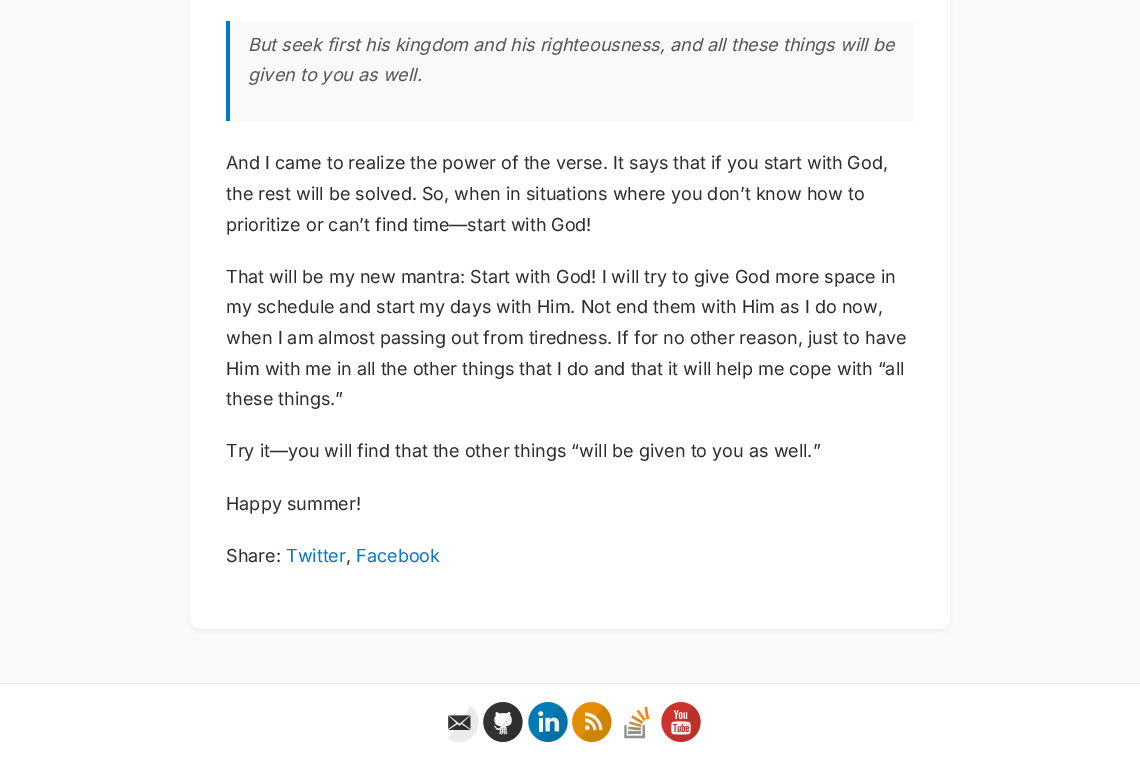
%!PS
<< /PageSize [1140 761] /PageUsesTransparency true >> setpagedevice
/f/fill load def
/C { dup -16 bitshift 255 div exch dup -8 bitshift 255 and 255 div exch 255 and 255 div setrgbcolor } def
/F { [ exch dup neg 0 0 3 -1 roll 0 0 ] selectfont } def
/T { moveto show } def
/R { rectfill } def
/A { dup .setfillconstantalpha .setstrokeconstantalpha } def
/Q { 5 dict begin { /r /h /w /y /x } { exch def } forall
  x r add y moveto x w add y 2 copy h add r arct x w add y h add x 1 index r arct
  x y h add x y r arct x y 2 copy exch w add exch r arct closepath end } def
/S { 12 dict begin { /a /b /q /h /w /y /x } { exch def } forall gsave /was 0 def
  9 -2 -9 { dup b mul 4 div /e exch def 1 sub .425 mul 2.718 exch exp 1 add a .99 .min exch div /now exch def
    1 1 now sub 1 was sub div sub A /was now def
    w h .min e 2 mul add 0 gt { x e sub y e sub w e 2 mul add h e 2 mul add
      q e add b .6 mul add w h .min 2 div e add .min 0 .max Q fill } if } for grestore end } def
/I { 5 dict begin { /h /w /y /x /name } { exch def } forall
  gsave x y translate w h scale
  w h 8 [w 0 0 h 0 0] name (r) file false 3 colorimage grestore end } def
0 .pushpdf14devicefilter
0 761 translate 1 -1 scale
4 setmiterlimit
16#FAFAFA C
0 0 1140 761 R
16#000000 C
190 -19 760 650 10 3 .05 S
16#FFFFFF C
190 -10 760 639 10 Q f
16#F9F9F9 C
230 21 684 100 R
16#0077CC C
226 21 4 100 R
/Inter-Italic 18 F
16#555555 C
(But seek first his kingdom and his righteousness, and all these things will be) 248 51 T
(given to you as well.) 248 81 T
/Inter-Regular 18 F
16#2D2D2D C
(And I came to realize the power of the verse. It says that if you start with God,) 226 169 T
(the rest will be solved. So, when in situations where you don’t know how to) 226 200 T
(prioritize or can’t find time—start with God!) 226 231 T
(That will be my new mantra: Start with God! I will try to give God more space in) 226 283 T
(my schedule and start my days with Him. Not end them with Him as I do now,) 226 313 T
(when I am almost passing out from tiredness. If for no other reason, just to have) 226 344 T
(Him with me in all the other things that I do and that it will help me cope with “all) 226 375 T
(these things.”) 226 405 T
(Try it—you will find that the other things “will be given to you as well.”) 226 457 T
(Happy summer!) 226 510 T
(Share:) 226 562 T
16#0077CC C
(Twitter) 286 562 T
16#2D2D2D C
(,) 346 562 T
16#0077CC C
(Facebook) 356 562 T
16#FFFFFF C
0 684 1140 77 R
16#E5E5E5 C
0 683 1140 1 R
(1.rgb) 448 706 31 36 I
(2.rgb) 483 702 40 40 I
(3.rgb) 528 702 40 40 I
(4.rgb) 572 702 40 40 I
(5.rgb) 624 706 26 33 I
(6.rgb) 661 702 40 40 I
.poppdf14devicefilter showpage
